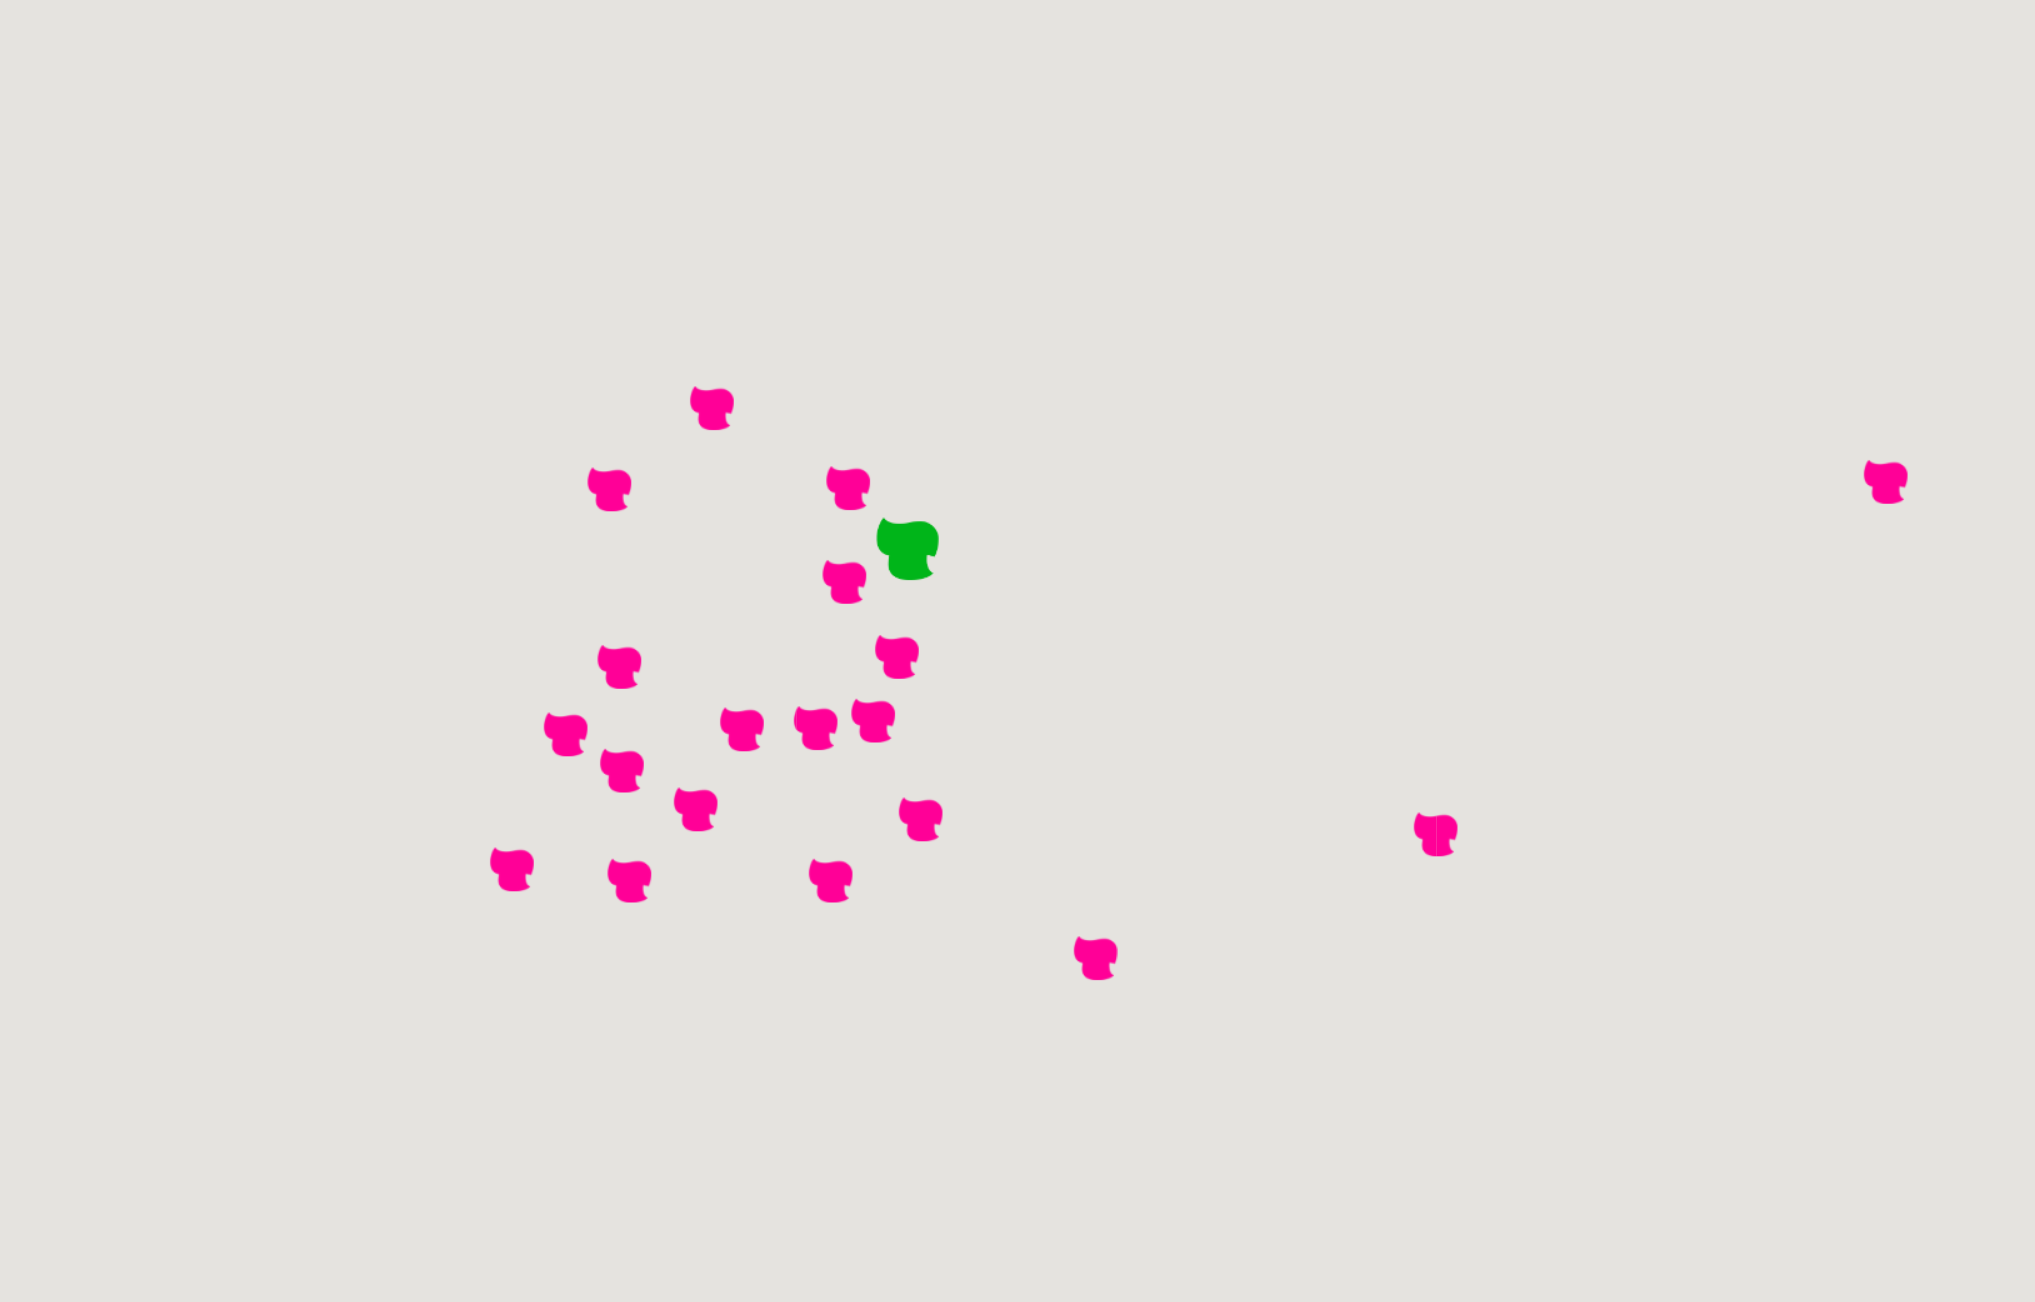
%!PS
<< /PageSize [2035 1302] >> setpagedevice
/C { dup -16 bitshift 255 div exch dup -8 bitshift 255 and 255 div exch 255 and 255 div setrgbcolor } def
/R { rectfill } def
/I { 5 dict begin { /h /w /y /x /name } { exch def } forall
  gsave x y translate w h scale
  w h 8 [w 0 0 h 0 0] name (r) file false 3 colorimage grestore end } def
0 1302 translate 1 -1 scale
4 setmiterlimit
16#E5E3DF C
0 0 2035 1302 R
(1.rgb) 587 386 147 303 I
(2.rgb) 822 466 117 213 I
(3.rgb) 1863 459 45 45 I
(5.rgb) 796 698 321 283 I
(4.rgb) 489 707 308 196 I
(6.rgb) 1116 812 321 150 I
(7.rgb) 1436 813 22 44 I
showpage
